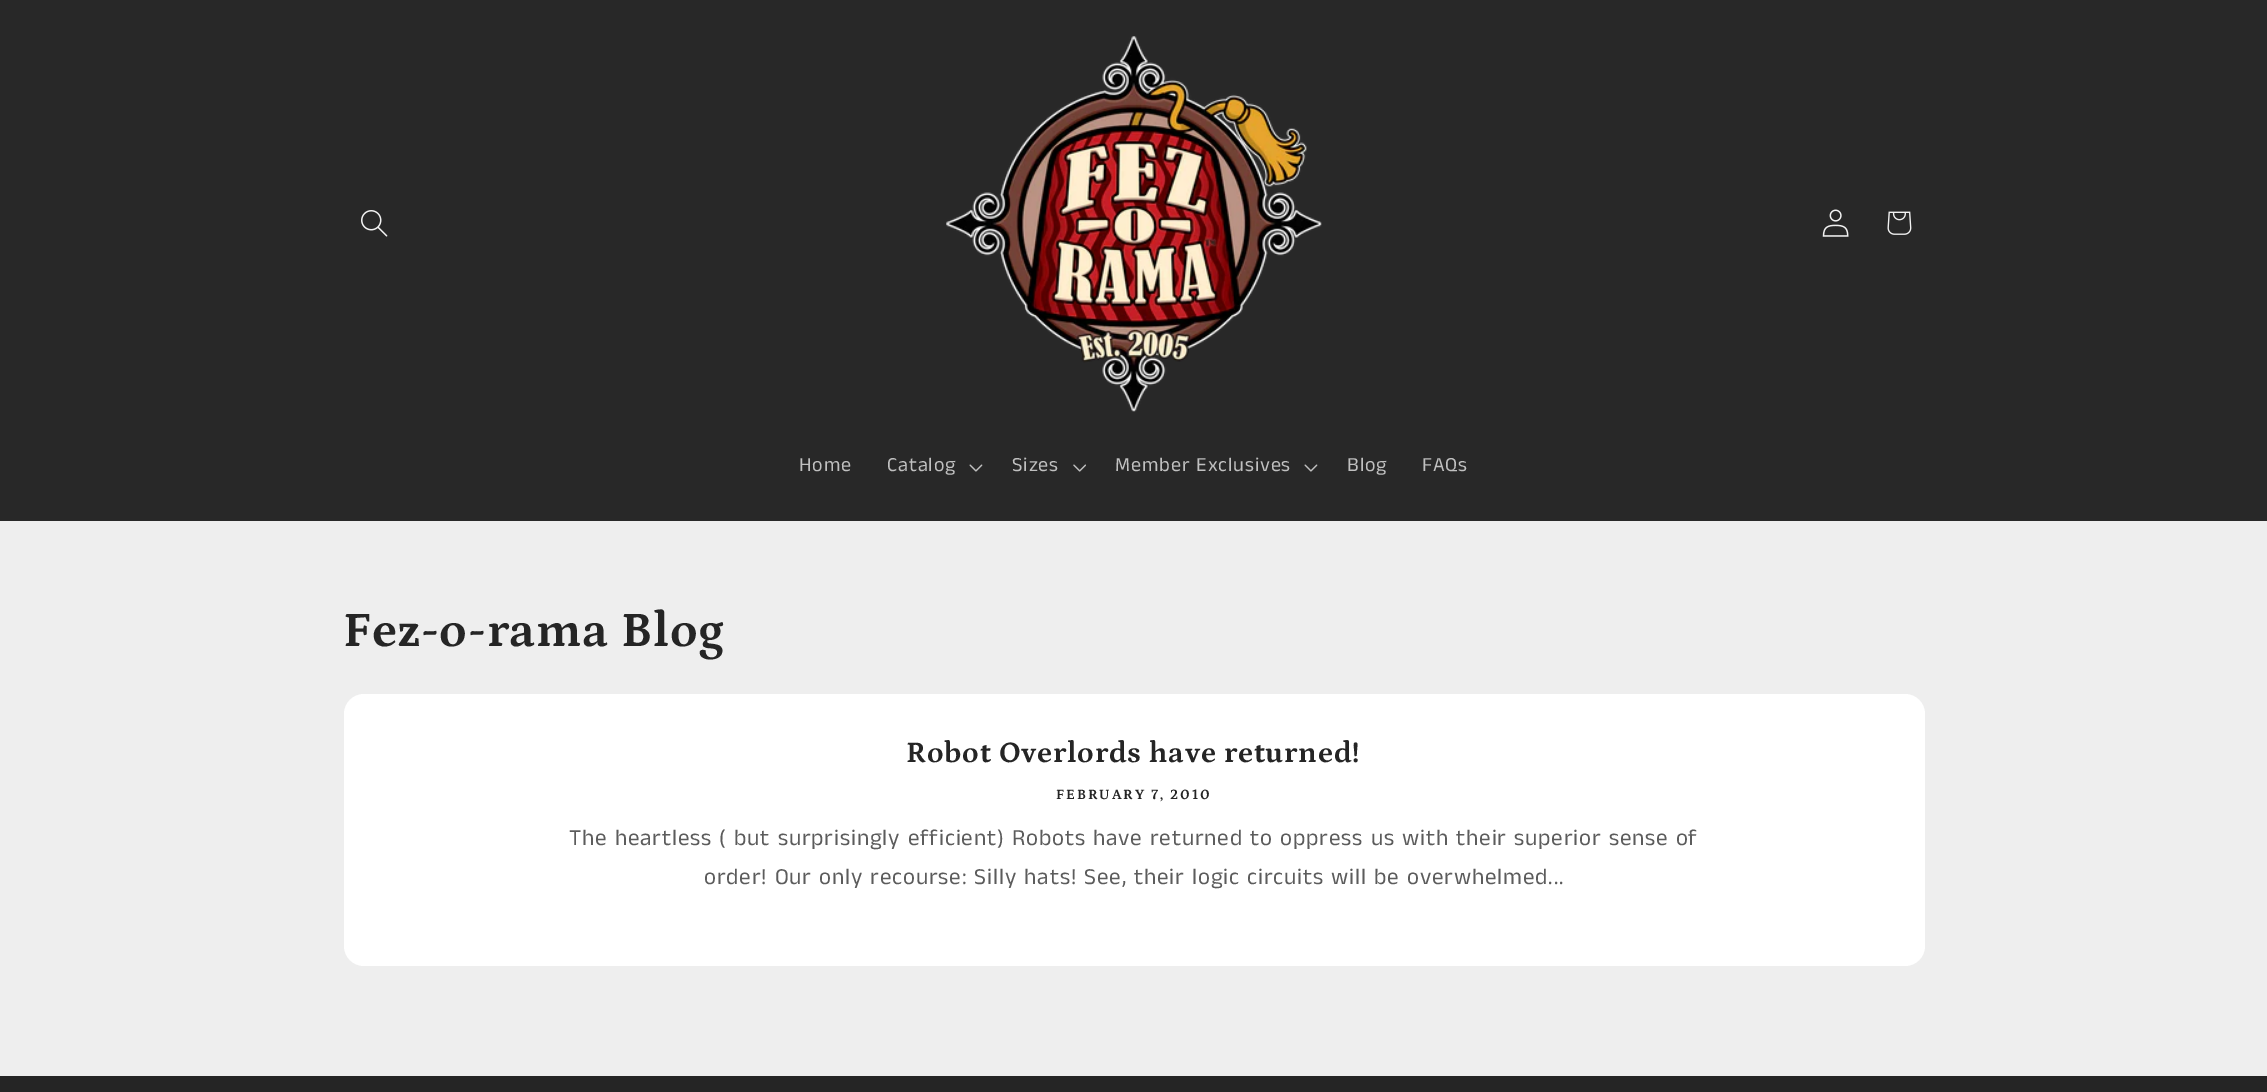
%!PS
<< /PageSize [2267 1092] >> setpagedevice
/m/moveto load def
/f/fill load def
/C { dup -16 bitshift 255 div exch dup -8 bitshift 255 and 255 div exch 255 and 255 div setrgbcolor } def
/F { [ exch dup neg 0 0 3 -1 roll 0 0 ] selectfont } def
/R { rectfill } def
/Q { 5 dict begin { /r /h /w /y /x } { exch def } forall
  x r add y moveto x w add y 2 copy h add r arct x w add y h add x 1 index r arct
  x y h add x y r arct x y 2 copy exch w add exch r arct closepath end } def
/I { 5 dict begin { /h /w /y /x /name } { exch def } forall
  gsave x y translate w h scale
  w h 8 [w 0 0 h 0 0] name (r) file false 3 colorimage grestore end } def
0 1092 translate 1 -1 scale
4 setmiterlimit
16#EEEEEE C
0 0 2267 1092 R
16#282828 C
0 0 2267 521 R
(1.rgb) 361 210 27 27 I
(2.rgb) 946 36 376 376 I
(3.rgb) 1822 209 27 28 I
(4.rgb) 1887 211 25 24 I
/AnekTamil-Regular 20.1 F
16#C0C0C0 C
799 471 m .86 0 (Home) ashow
887 471 m .86 0 (Catalog) ashow
(5.rgb) 969 464 14 8 I
1012 471 m .86 0 (Sizes) ashow
(6.rgb) 1073 464 13 8 I
1115 471 m .86 0 (Member Exclusives) ashow
(5.rgb) 1304 464 14 8 I
1347 471 m .86 0 (Blog) ashow
1422 471 m .86 0 (FAQs) ashow
/Petrona-Bold 50 F
16#252525 C
343 646 m .75 0 (Fez-o-rama Blog) ashow
16#FFFFFF C
344 694 1581 272 20 Q f
/Petrona-Bold 30 F
16#252525 C
906 762 m .75 0 (Robot Overlords have returned!) ashow
/Petrona-Bold 14.4 F
1056 799 m 1.9 0 (FEBRUARY 7, 2010) ashow
/AnekTamil-Regular 23 F
16#5C5C5C C
569 845 m .86 0 (The heartless \( but surprisingly efficient\) Robots have returned to oppress us with their superior sense of) ashow
704 884 m .86 0 (order! Our only recourse: Silly hats! See, their logic circuits will be overwhelmed...) ashow
16#252525 C
0 1076 2267 16 R
showpage
